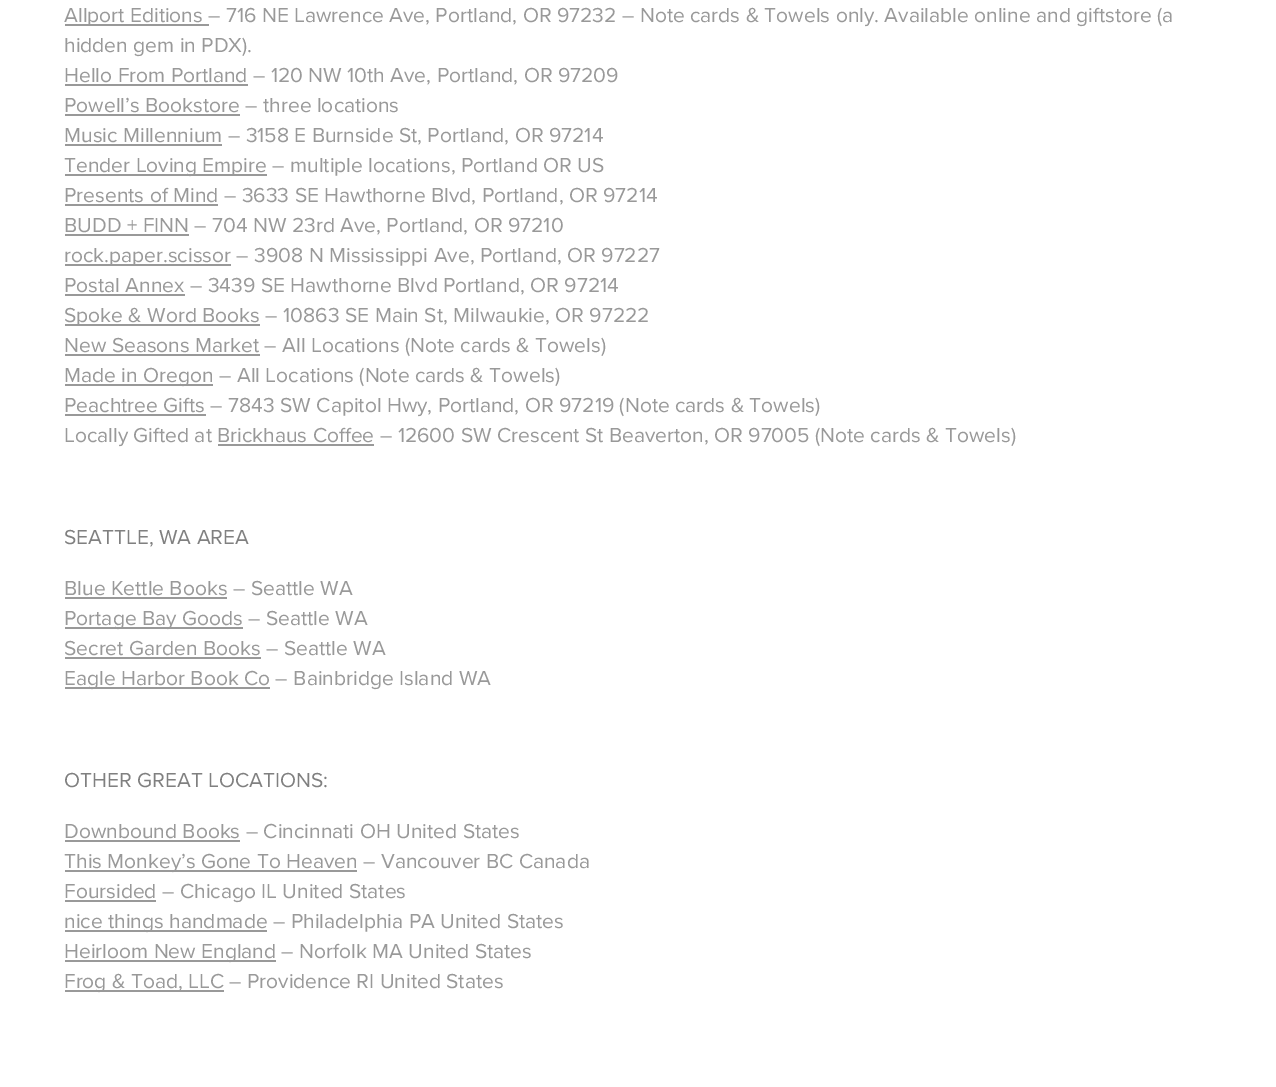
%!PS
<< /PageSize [1276 1087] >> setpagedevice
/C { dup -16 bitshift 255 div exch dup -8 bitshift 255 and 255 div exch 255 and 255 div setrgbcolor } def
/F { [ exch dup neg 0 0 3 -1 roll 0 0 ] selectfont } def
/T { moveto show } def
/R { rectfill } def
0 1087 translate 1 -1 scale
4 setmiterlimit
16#FFFFFF C
0 0 1276 1087 R
16#999999 C
65 24 144 2 R
/ProximaNova-Regular 21 F
(Allport Editions – 716 NE Lawrence Ave, Portland, OR 97232 – Note cards & Towels only. Available online and giftstore \(a) 64 22 T
(hidden gem in PDX\).) 64 52 T
65 84 183 2 R
(Hello From Portland – 120 NW 10th Ave, Portland, OR 97209) 64 82 T
(Powell’s Bookstore – three locations) 64 112 T
65 114 175 2 R
65 144 157 2 R
(Music Millennium – 3158 E Burnside St, Portland, OR 97214) 64 142 T
65 174 202 2 R
(Tender Loving Empire – multiple locations, Portland OR US) 64 172 T
65 204 153 2 R
(Presents of Mind – 3633 SE Hawthorne Blvd, Portland, OR 97214) 64 202 T
65 234 124 2 R
(BUDD + FINN – 704 NW 23rd Ave, Portland, OR 97210) 64 232 T
65 264 166 2 R
(rock.paper.scissor – 3908 N Mississippi Ave, Portland, OR 97227) 64 262 T
65 294 120 2 R
(Postal Annex – 3439 SE Hawthorne Blvd Portland, OR 97214) 64 292 T
65 324 195 2 R
(Spoke & Word Books – 10863 SE Main St, Milwaukie, OR 97222) 64 322 T
65 354 195 2 R
(New Seasons Market – All Locations \(Note cards & Towels\)) 64 352 T
65 384 148 2 R
(Made in Oregon – All Locations \(Note cards & Towels\)) 64 382 T
65 414 141 2 R
(Peachtree Gifts – 7843 SW Capitol Hwy, Portland, OR 97219 \(Note cards & Towels\)) 64 412 T
(Locally Gifted at Brickhaus Coffee – 12600 SW Crescent St Beaverton, OR 97005 \(Note cards & Towels\)) 64 442 T
218 444 156 2 R
16#808080 C
(SEATTLE, WA AREA) 64 544 T
16#999999 C
(Blue Kettle Books – Seattle WA) 64 595 T
65 597 162 2 R
65 627 178 2 R
(Portage Bay Goods – Seattle WA) 64 625 T
(Secret Garden Books – Seattle WA) 64 655 T
65 657 196 2 R
65 687 205 2 R
(Eagle Harbor Book Co – Bainbridge Island WA) 64 685 T
16#808080 C
(OTHER GREAT LOCATIONS:) 64 787 T
16#999999 C
(Downbound Books – Cincinnati OH United States) 64 838 T
65 840 175 2 R
65 870 292 2 R
(This Monkey’s Gone To Heaven – Vancouver BC Canada) 64 868 T
65 900 91 2 R
(Foursided – Chicago IL United States) 64 898 T
65 930 202 2 R
(nice things handmade – Philadelphia PA United States) 64 928 T
65 960 211 2 R
(Heirloom New England – Norfolk MA United States) 64 958 T
65 990 159 2 R
(Frog & Toad, LLC – Providence RI United States) 64 988 T
showpage
